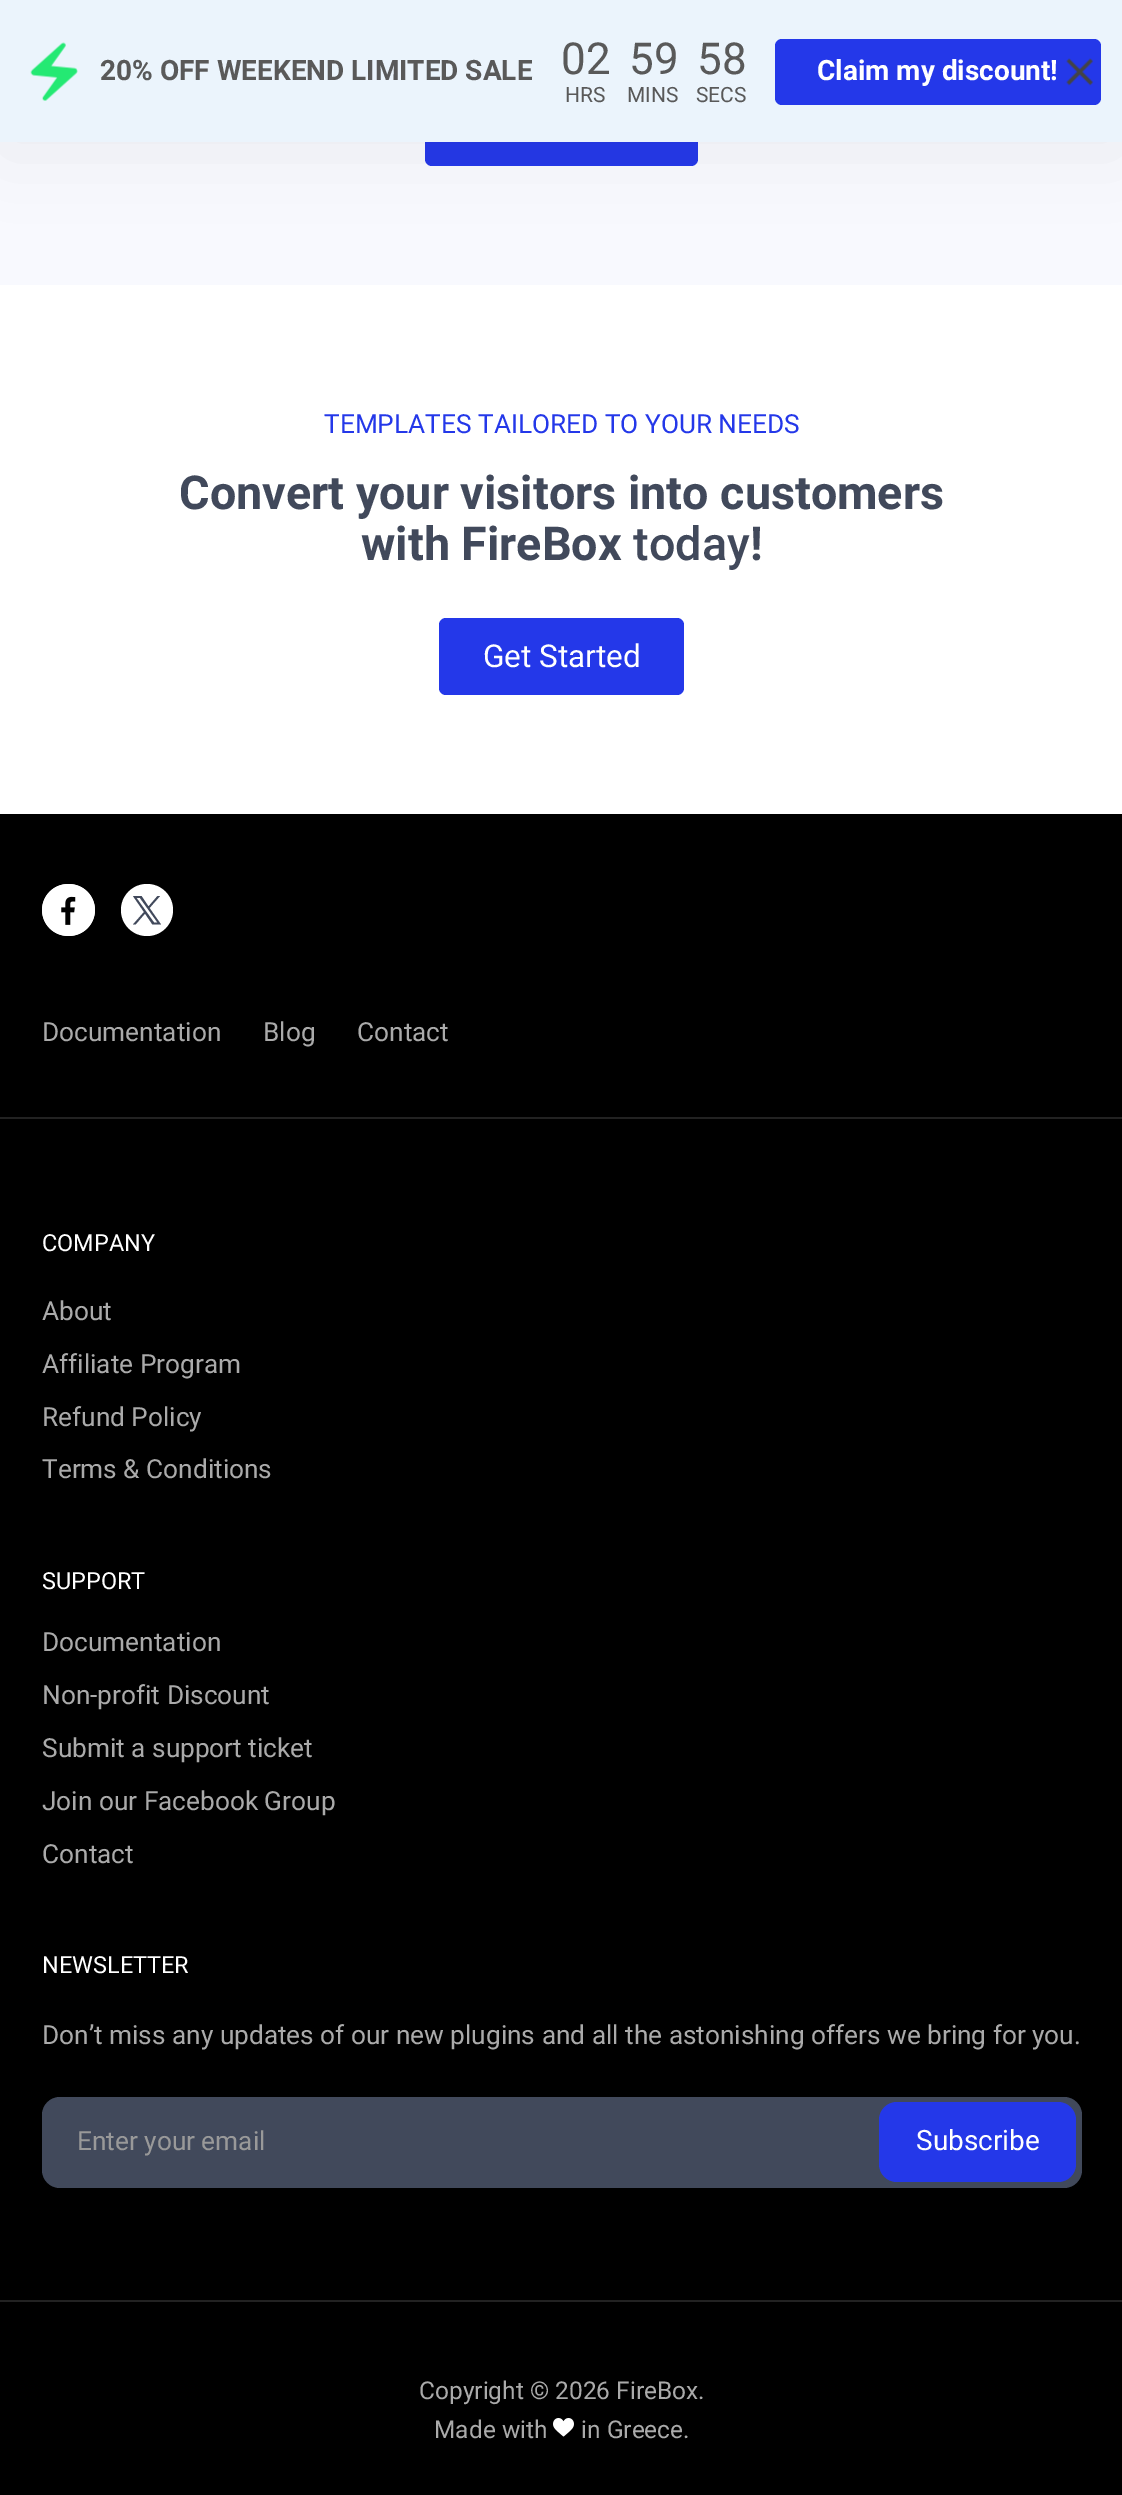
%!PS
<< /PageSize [1122 2495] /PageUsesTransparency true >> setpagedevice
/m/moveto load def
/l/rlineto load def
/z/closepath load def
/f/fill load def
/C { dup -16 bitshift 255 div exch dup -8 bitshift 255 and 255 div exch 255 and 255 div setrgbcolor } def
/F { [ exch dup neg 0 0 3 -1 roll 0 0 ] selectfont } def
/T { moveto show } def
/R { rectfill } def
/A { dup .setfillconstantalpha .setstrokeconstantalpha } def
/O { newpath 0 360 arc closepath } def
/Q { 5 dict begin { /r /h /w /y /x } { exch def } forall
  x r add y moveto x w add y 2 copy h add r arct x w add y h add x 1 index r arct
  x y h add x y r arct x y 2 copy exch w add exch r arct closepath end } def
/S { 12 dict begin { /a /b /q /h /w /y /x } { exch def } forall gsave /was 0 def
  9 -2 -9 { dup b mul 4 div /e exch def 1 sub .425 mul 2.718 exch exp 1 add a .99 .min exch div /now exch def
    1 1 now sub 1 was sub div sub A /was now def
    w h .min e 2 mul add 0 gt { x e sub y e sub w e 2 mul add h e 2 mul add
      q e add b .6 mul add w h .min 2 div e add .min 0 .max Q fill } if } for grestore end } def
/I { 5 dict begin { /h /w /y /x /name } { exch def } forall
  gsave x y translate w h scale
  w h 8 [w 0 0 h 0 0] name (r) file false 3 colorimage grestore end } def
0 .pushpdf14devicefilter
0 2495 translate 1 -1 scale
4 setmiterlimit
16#FFFFFF C
0 0 1122 2495 R
16#F8F9FE C
0 142 1122 143 R
16#2438E9 C
425 89 273 77 7 Q f
16#000000 C
0 14 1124 140 0 40 .05 S
16#EBF4FC C
0 0 1122 142 R
(1.rgb) 30 42 48 59 I
/Roboto-Bold 28 F
16#595959 C
(20% OFF WEEKEND LIMITED SALE) 100 80 T
/Roboto-Regular 44 F
(02) 561 74 T
/Roboto-Regular 21 F
(HRS) 565 102 T
/Roboto-Regular 44 F
(59) 629 74 T
/Roboto-Regular 21 F
(MINS) 627 102 T
/Roboto-Regular 44 F
(58) 697 74 T
/Roboto-Regular 21 F
(SECS) 696 102 T
16#2438E9 C
775 39 326 66 7 Q f
/Roboto-Bold 28 F
16#FFFFFF C
(Claim my discount!) 817 80 T
(2.rgb) 1066 58 28 28 I
/Roboto-Regular 26.25 F
16#2438E9 C
(TEMPLATES TAILORED TO YOUR NEEDS) 324 433 T
/Roboto-Bold 46.75 F
16#41495B C
(Convert your visitors into customers) 179 509 T
(with FireBox) 361 560 T
/Roboto-Medium 46.75 F
(today) 633 560 T
/Roboto-Bold 46.75 F
(!) 750 560 T
16#2438E9 C
439 618 245 77 7 Q f
/Roboto-Regular 31.5 F
16#FFFFFF C
(Get Started) 483 667 T
16#000000 C
0 814 1122 1681 R
16#222222 C
0 1117 1122 2 R
(3.rgb) 42 884 53 52 I
16#FFFFFF C
147 910 26 O f
16#41495B C
149.5 908 m 10.5 -12 l -2.5 0 l -9 10.5 l -7 -10.5 l -8.5 0 l 11 16 l -11 12.5 l 2.5 0 l 9.5 -11 l 7.5 11 l 8.5 0 l z 146.5 912 m -10 -14 l 3.5 0 l 17.5 24.5 l -3.5 0 l z f
/Roboto-Regular 26.25 F
16#AAAAAA C
(Documentation) 42 1041 T
(Blog) 263 1041 T
(Contact) 357 1041 T
16#222222 C
0 2300 1122 2 R
/Roboto-Regular 23.5 F
16#FFFFFF C
(COMPANY) 42 1251 T
/Roboto-Regular 26.25 F
16#AAAAAA C
(About) 42 1320 T
(Affiliate Program) 42 1373 T
(Refund Policy) 42 1426 T
(Terms & Conditions) 42 1478 T
/Roboto-Regular 23.5 F
16#FFFFFF C
(SUPPORT) 42 1589 T
/Roboto-Regular 26.25 F
16#AAAAAA C
(Documentation) 42 1651 T
(Non-profit Discount) 42 1704 T
(Submit a support ticket) 42 1757 T
(Join our Facebook Group) 42 1810 T
(Contact) 42 1863 T
/Roboto-Regular 23.5 F
16#FFFFFF C
(NEWSLETTER) 42 1973 T
/Roboto-Regular 26.25 F
16#AAAAAA C
(Don’t miss any updates of our new plugins and all the astonishing offers we bring for you.) 42 2044 T
16#41495B C
42 2097 1040 91 18 Q f
16#999999 C
(Enter your email) 77 2150 T
16#2438E9 C
879 2102 197 80 18 Q f
/Roboto-Regular 28 F
16#FFFFFF C
(Subscribe) 916 2150 T
/Roboto-Regular 24.5 F
16#AAAAAA C
(Copyright © 2026 FireBox.) 419 2399 T
(Made with) 434 2438 T
(4.rgb) 553 2418 21 19 I
(in Greece.) 581 2438 T
.poppdf14devicefilter showpage
